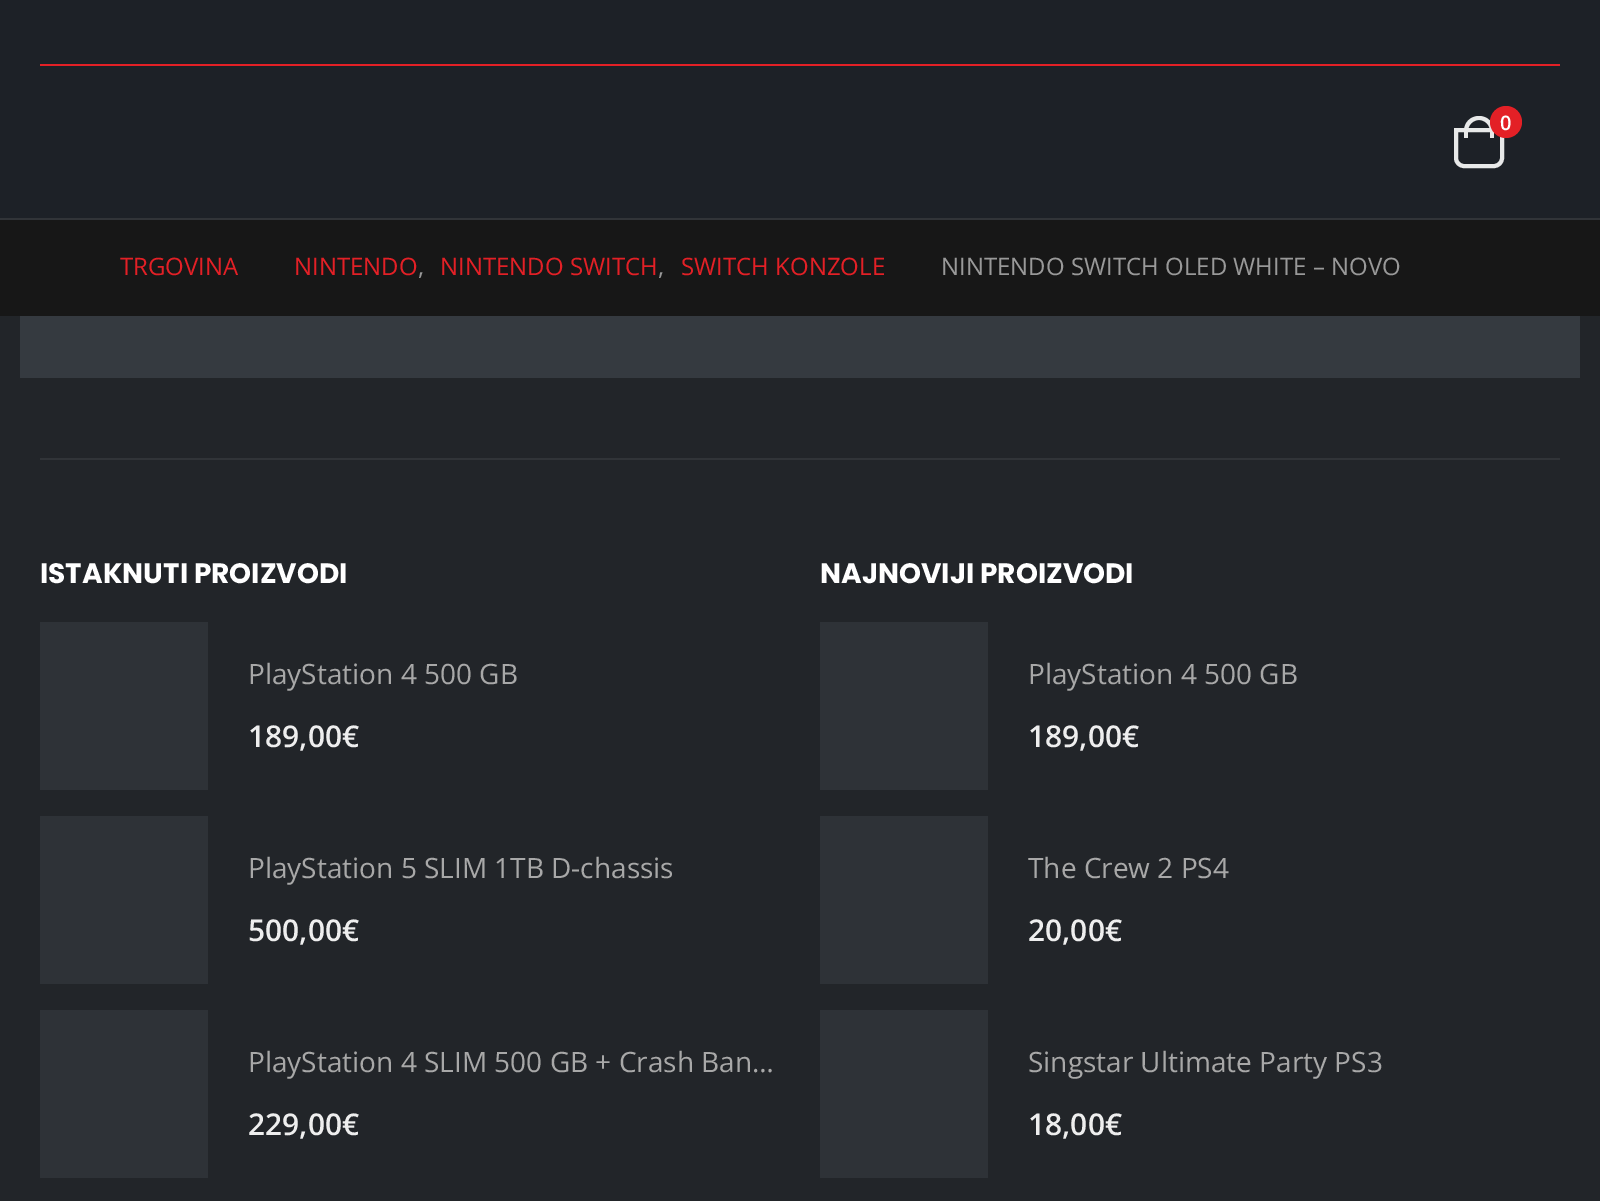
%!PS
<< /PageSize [1600 1201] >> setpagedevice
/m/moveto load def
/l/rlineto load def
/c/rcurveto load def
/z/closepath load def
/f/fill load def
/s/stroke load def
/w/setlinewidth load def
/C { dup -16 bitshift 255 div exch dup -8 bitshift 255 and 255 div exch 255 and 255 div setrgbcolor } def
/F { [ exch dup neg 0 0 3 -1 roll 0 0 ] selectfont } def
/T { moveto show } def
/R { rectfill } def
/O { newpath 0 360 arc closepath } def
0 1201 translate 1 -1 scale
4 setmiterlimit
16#1D2127 C
0 0 1600 1201 R
16#313438 C
0 218 1600 2 R
16#E32026 C
40 64 1520 2 R
16#E8E9E9 C
4 w
1456 130 m 46 0 l 0 28 l 0 4.5 -3.5 8 -8 8 c -30 0 l -4.5 0 -8 -3.5 -8 -8 c z s
1479 116 m 8.5 0 15 6.5 15 15 c 0 7 l -30 0 l 0 -7 l 0 -8.5 6.5 -15 15 -15 c z 1479 120 m 6 0 11 5 11 11 c 0 7 l -22 0 l 0 -7 l 0 -6 5 -11 11 -11 c z eofill
16#E32026 C
1506 122 16 O f
/OpenSans-SemiBold 20 F
16#FFFFFF C
(0) 1500 130 T
16#171717 C
0 220 1600 96 R
/OpenSans-Regular 24 F
16#E32026 C
(TRGOVINA) 120 275 T
(NINTENDO) 294 275 T
16#999999 C
(,) 418 275 T
16#E32026 C
(NINTENDO SWITCH) 440 275 T
16#999999 C
(,) 658 275 T
16#E32026 C
(SWITCH KONZOLE) 681 275 T
16#999999 C
(NINTENDO SWITCH OLED WHITE – NOVO) 941 275 T
16#222529 C
0 316 1600 885 R
16#353A40 C
22 316 1556 60 R
1578 316 2 62 R
20 376 1560 2 R
20 316 2 62 R
16#313438 C
40 458 1520 2 R
/Poppins-Bold 28 F
16#FFFFFF C
(ISTAKNUTI PROIZVODI) 40 583 T
16#2E3237 C
40 622 168 168 R
/OpenSans-Regular 28 F
16#A8A8A8 C
(PlayStation 4 500 GB) 248 684 T
/OpenSans-SemiBold 30 F
16#EEEEEE C
(189,00€) 248 747 T
16#2E3237 C
40 816 168 168 R
/OpenSans-Regular 28 F
16#A8A8A8 C
(PlayStation 5 SLIM 1TB D-chassis) 248 878 T
/OpenSans-SemiBold 30 F
16#EEEEEE C
(500,00€) 248 941 T
16#2E3237 C
40 1010 168 168 R
/OpenSans-Regular 28 F
16#A8A8A8 C
(PlayStation 4 SLIM 500 GB + Crash Ban…) 248 1072 T
/OpenSans-SemiBold 30 F
16#EEEEEE C
(229,00€) 248 1135 T
/Poppins-Bold 28 F
16#FFFFFF C
(NAJNOVIJI PROIZVODI) 820 583 T
16#2E3237 C
820 622 168 168 R
/OpenSans-Regular 28 F
16#A8A8A8 C
(PlayStation 4 500 GB) 1028 684 T
/OpenSans-SemiBold 30 F
16#EEEEEE C
(189,00€) 1028 747 T
16#2E3237 C
820 816 168 168 R
/OpenSans-Regular 28 F
16#A8A8A8 C
(The Crew 2 PS4) 1028 878 T
/OpenSans-SemiBold 30 F
16#EEEEEE C
(20,00€) 1028 941 T
16#2E3237 C
820 1010 168 168 R
/OpenSans-Regular 28 F
16#A8A8A8 C
(Singstar Ultimate Party PS3) 1028 1072 T
/OpenSans-SemiBold 30 F
16#EEEEEE C
(18,00€) 1028 1135 T
showpage
